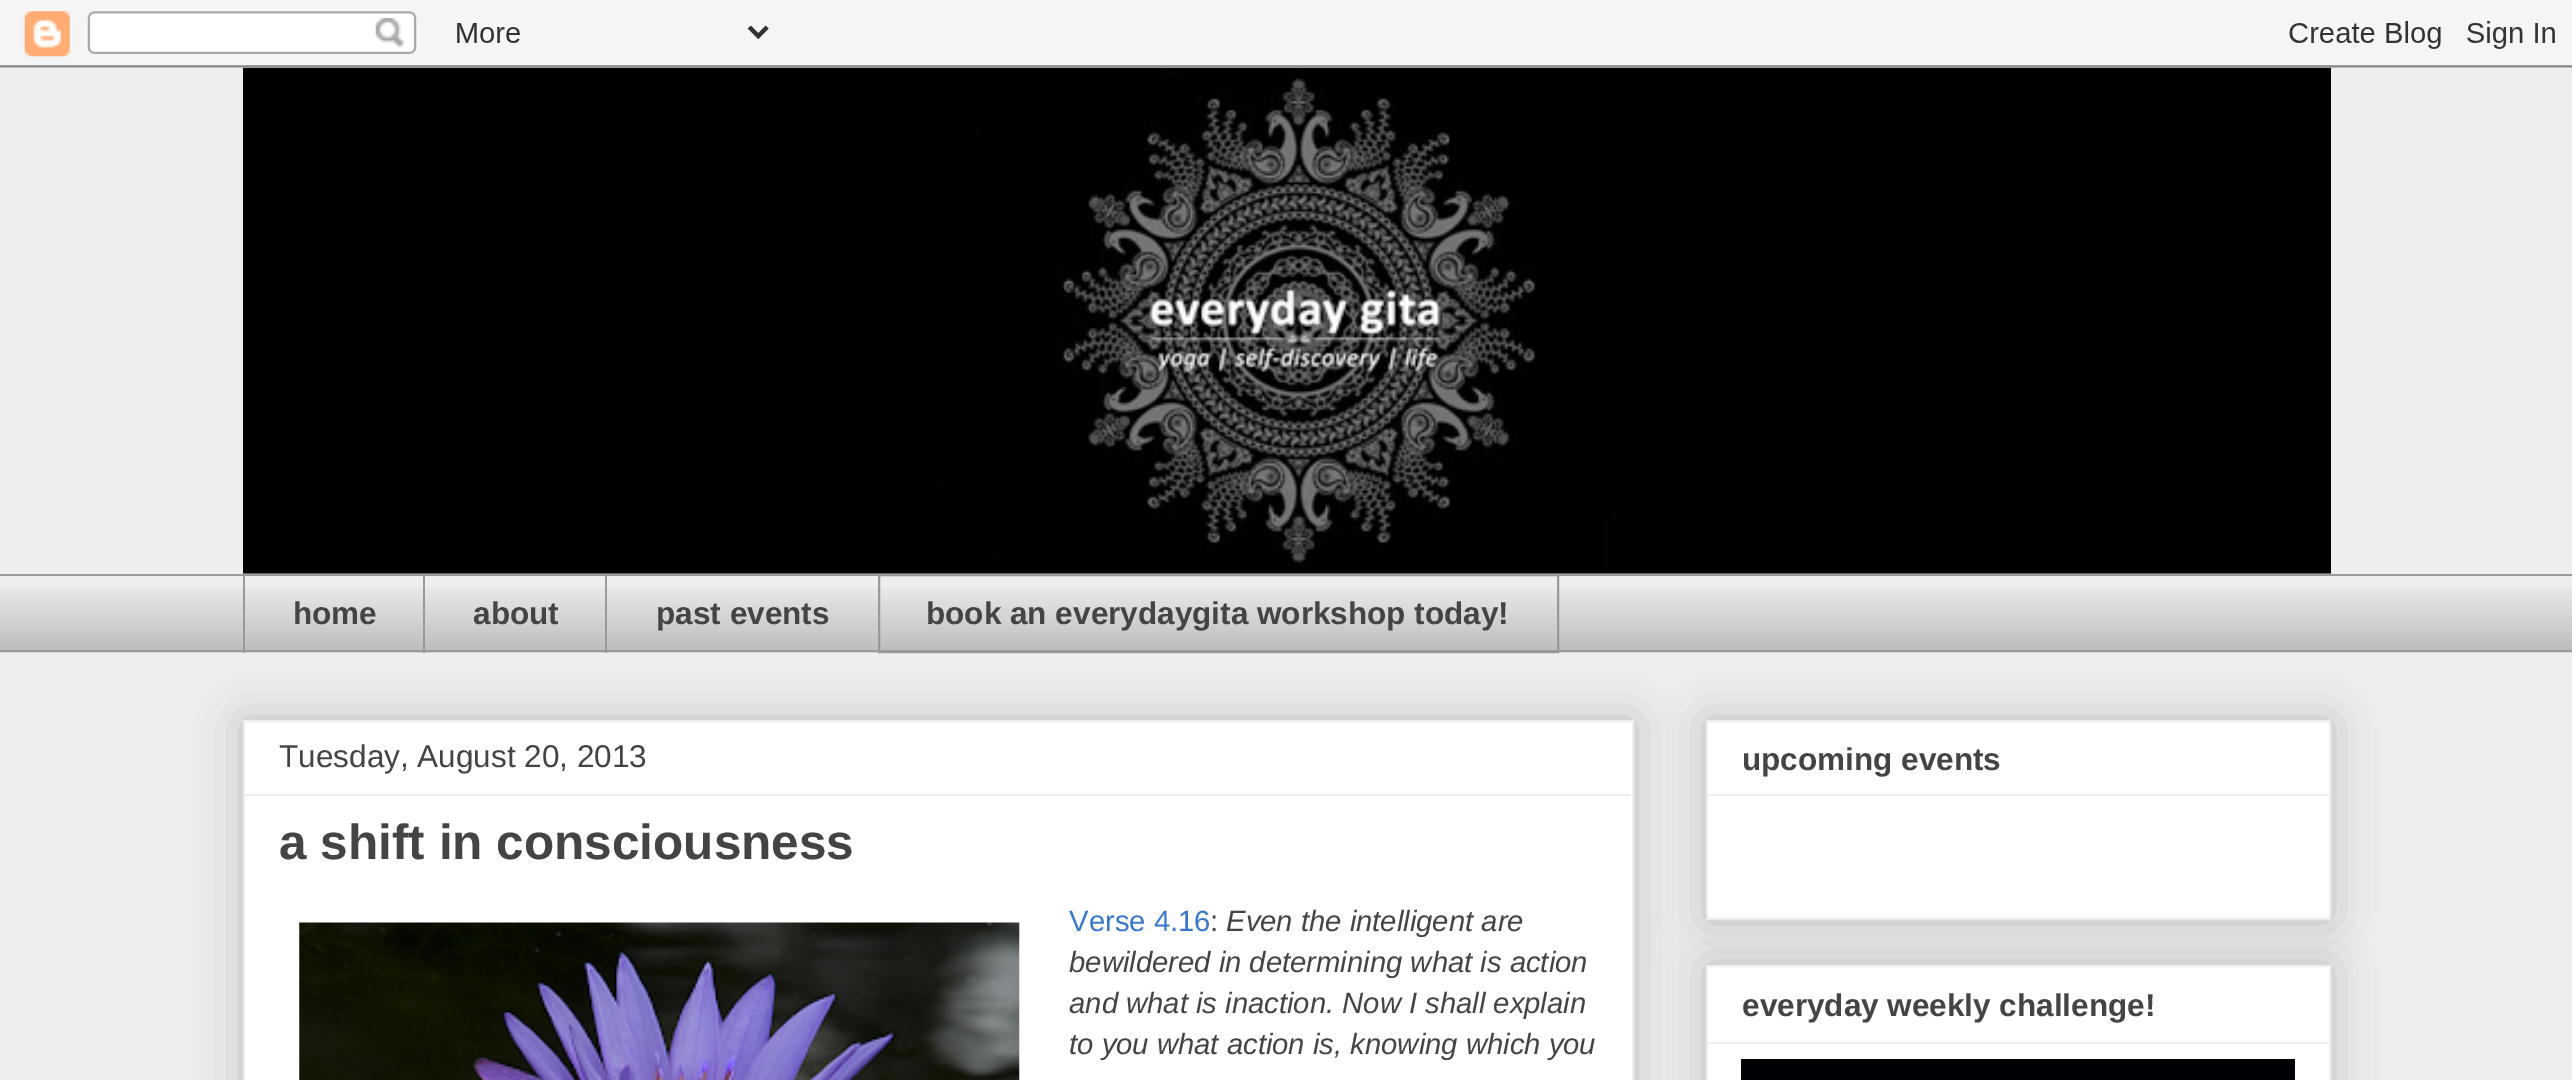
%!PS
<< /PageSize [2572 1080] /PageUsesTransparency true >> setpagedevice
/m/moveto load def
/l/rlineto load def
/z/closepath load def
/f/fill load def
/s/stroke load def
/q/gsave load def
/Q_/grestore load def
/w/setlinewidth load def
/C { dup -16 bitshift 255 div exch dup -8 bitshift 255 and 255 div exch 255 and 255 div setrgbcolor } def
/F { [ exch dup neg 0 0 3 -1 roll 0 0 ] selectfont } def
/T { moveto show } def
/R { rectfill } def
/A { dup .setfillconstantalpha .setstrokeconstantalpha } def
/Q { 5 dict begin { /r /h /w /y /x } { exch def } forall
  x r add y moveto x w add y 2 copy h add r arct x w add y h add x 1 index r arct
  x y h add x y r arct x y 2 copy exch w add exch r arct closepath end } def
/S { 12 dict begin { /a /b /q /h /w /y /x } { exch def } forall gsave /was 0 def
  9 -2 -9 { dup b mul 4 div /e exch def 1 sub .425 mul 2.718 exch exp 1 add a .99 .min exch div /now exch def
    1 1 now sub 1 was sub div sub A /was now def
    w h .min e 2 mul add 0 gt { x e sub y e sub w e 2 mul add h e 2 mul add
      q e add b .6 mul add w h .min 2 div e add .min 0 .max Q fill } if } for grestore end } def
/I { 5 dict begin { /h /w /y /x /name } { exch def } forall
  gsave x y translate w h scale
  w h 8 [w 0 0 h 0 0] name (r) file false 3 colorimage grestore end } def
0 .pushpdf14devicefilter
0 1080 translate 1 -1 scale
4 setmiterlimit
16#EEEEEE C
0 0 2572 1080 R
(2.rgb) 243 67 2088 507 I
(1.rgb) 0 0 2572 68 I
(3.rgb) 0 587 2572 66 I
16#999999 C
0 574 2572 2 R
243 574 2 79 R
/LiberationSans-Bold 31.5 F
16#444444 C
(home) 293 624 T
16#999999 C
423 574 2 79 R
16#444444 C
(about) 473 624 T
16#999999 C
605 574 2 79 R
16#444444 C
(past events) 656 624 T
16#999999 C
2 w
879 575 679 77 rectstroke
16#444444 C
(book an everydaygita workshop today!) 926 624 T
16#999999 C
0 650 2572 2 R
16#000000 C
243 720 1391 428 0 22.5 .2 S
16#FFFFFF C
244 721 m 1389 0 l 0 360 l -1389 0 l z q f Q_
16#EEEEEE C
s
/LiberationSans-Regular 31.5 F
16#444444 C
(Tuesday, August 20, 2013) 279 767 T
16#EEEEEE C
245 794 1386 2 R
/LiberationSans-Bold 49.5 F
16#444444 C
(a shift in consciousness) 279 859 T
(4.rgb) 299 922 721 158 I
/LiberationSans-Regular 29.25 F
16#3778CD C
(Verse 4.16) 1069 931 T
16#444444 C
(:) 1210 931 T
/LiberationSans-Italic 29.25 F
(Even the intelligent are) 1226 931 T
(bewildered in determining what is action) 1069 972 T
(and what is inaction. Now I shall explain) 1069 1013 T
(to you what action is, knowing which you) 1069 1054 T
16#000000 C
1706 720 625 200 0 22.5 .2 S
16#FFFFFF C
1707 721 m 623 0 l 0 198 l -623 0 l z q f Q_
16#EEEEEE C
s
/LiberationSans-Bold 31.5 F
16#444444 C
(upcoming events) 1742 770 T
16#EEEEEE C
1708 794 621 2 R
16#000000 C
1706 965 625 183 0 22.5 .2 S
16#FFFFFF C
1707 966 m 623 0 l 0 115 l -623 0 l z q f Q_
16#EEEEEE C
s
16#444444 C
(everyday weekly challenge!) 1742 1016 T
16#EEEEEE C
1708 1042 621 2 R
16#000004 C
1741 1059 554 21 R
.poppdf14devicefilter showpage
